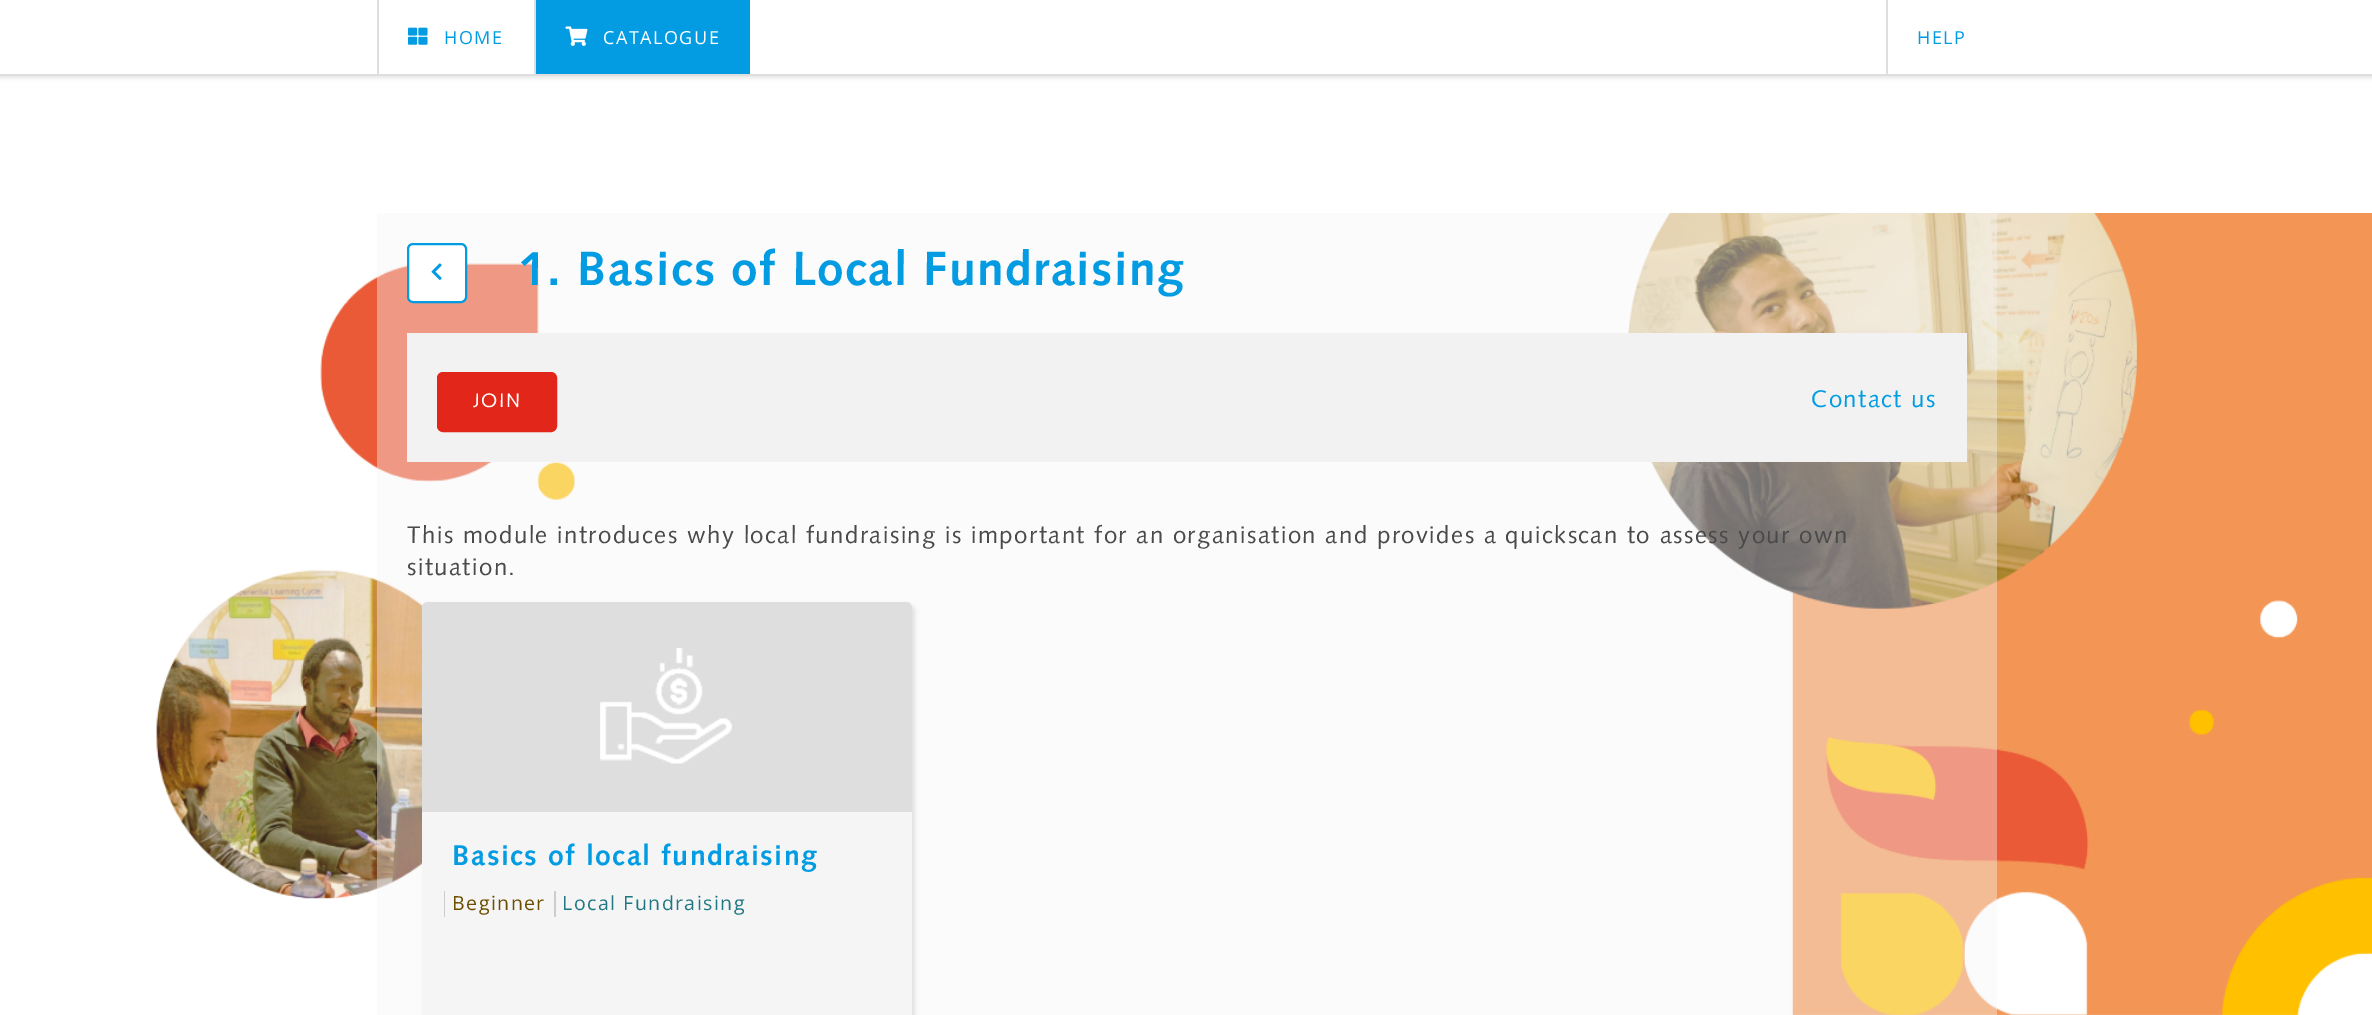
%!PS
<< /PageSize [2372 1015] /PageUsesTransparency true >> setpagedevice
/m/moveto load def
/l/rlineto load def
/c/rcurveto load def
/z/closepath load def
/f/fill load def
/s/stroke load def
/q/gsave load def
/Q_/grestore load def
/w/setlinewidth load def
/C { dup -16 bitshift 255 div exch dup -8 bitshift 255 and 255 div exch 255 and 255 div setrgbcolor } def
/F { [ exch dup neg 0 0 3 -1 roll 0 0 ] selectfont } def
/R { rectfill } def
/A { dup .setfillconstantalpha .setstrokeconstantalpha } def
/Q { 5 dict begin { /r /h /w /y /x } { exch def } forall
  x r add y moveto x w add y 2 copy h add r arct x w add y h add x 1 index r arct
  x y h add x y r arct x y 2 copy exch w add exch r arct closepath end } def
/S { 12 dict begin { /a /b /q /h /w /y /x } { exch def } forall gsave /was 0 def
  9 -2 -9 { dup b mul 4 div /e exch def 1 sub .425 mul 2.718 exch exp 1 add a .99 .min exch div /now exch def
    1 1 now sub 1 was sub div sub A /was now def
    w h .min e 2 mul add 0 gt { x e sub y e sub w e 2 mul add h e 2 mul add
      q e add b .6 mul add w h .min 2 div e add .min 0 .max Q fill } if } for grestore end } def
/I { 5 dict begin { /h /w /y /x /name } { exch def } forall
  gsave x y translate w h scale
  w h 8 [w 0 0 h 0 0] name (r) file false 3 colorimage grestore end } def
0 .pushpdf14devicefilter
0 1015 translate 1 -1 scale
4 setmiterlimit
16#FFFFFF C
0 0 2372 1015 R
(1.rgb) 156 213 2216 802 I
16#4A4A4A C
0 3 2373 75 0 2 .15 S
16#FFFFFF C
0 0 2372 74 R
16#DEDEDE C
0 74 2372 2 R
377 0 2 74 R
(2.rgb) 408 27 20 18 I
/OpenSans-Regular 18 F
16#039CE2 C
444 44 m 1.5 0 (HOME) ashow
536 0 214 74 R
16#DEDEDE C
534 0 2 74 R
(3.rgb) 565 26 23 20 I
16#FFFFFF C
603 44 m 1.5 0 (CATALOGUE) ashow
16#DEDEDE C
1886 0 2 74 R
16#039CE2 C
1917 44 m 1.5 0 (HELP) ashow
0.4 A
16#F5F5F5 C
377 213 1620 802 R
1 A
16#FFFFFF C
408 244 58 58 5 Q q f Q_
16#039CE2 C
2 w
s
(4.rgb) 431 263 11 17 I
/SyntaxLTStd-Bold 48 F
519 285 m 1.5 0 (1. Basics of Local Fundraising) ashow
16#F2F2F2 C
407 333 1560 129 R
16#E22619 C
438 373 118 58 5 Q q f Q_
s
/SyntaxLTStd-Regular 19.5 F
16#FFFFFF C
473 407 m 1.5 0 (JOIN) ashow
/SyntaxLTStd-Regular 24 F
16#039CE2 C
1811 407 m 1.5 0 (Contact us) ashow
16#4A4A4A C
407 543 m 1.5 0 (This module introduces why local fundraising is important for an organisation and provides a quickscan to assess your own) ashow
407 575 m 1.5 0 (situation.) ashow
425 605 490 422 6 2 .15 S
16#F5F5F5 C
422 602 490 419 6 Q f
16#DEDEDE C
428 602 m 478 0 l 3.5 0 6 2.5 6 6 c 0 204 l -490 0 l 0 -204 l 0 -3.5 2.5 -6 6 -6 c z f
(5.rgb) 600 648 132 116 I
/SyntaxLTStd-Bold 28.5 F
16#039CE2 C
452 865 m 1.5 0 (Basics of local fundraising) ashow
16#CDCDCD C
444 891 1 26 R
/OpenSans-Regular 19.5 F
16#6C4E00 C
452 910 m 1.5 0 (Beginner) ashow
16#CDCDCD C
554 891 2 26 R
16#1F7784 C
562 910 m 1.5 0 (Local Fundraising) ashow
.poppdf14devicefilter showpage
